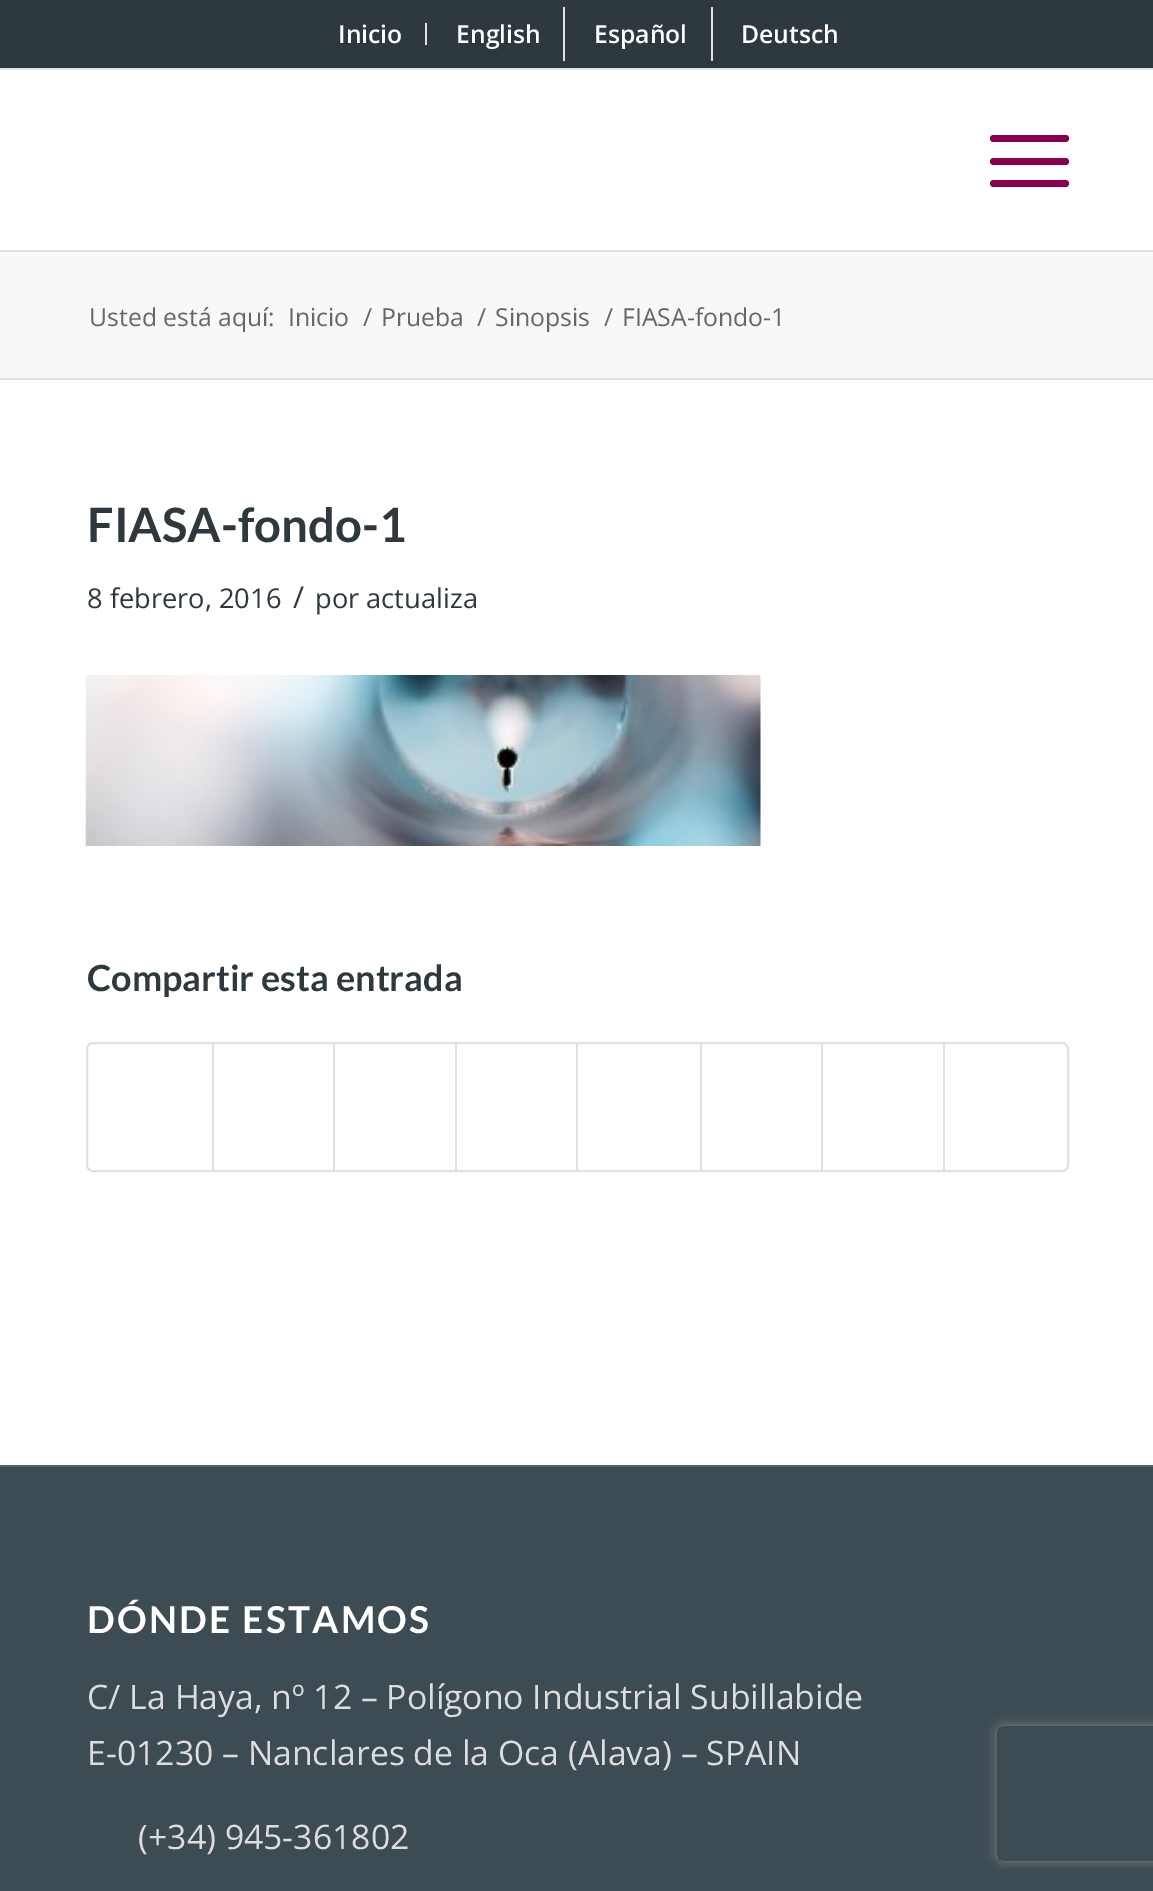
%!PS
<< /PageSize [1153 1891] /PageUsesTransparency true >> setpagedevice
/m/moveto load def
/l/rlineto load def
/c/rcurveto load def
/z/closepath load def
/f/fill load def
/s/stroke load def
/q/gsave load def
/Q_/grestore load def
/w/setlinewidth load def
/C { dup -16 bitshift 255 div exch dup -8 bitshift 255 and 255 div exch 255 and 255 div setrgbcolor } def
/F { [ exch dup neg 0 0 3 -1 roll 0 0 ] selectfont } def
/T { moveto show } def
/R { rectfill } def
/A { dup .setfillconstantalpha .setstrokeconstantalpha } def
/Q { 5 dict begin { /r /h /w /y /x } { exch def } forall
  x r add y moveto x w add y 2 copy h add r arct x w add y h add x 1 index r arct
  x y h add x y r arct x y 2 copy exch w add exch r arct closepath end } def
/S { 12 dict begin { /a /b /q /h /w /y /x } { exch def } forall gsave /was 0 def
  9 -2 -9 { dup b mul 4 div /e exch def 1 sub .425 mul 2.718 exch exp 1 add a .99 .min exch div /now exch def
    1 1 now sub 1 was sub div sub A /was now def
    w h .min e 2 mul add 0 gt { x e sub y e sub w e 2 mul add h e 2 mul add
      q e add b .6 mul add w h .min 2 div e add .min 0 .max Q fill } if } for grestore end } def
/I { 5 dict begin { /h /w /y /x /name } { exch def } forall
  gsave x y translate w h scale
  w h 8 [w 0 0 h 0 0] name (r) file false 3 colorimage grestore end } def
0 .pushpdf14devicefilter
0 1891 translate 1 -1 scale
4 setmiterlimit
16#FFFFFF C
0 0 1153 1891 R
16#2D393E C
0 0 1153 68 R
16#E1E1E1 C
0 68 1153 2 R
425 23 2 22 R
/OpenSans-SemiBold 24.75 F
16#FFFFFF C
(Inicio) 338 43 T
16#E1E1E1 C
563 7 2 54 R
16#FFFFFF C
(English) 456 43 T
16#E1E1E1 C
711 7 2 54 R
16#FFFFFF C
(Español) 594 43 T
(Deutsch) 741 43 T
16#E1E1E1 C
0 250 1153 2 R
16#8A004C C
990 158 79 7 3.5 Q f
990 135 79 7 3.5 Q f
990 180 79 7 3.5 Q f
16#F8F8F8 C
0 252 1153 126 R
/OpenSans-Regular 24.75 F
16#666666 C
(Usted está aquí:) 89 326 T
(Inicio) 288 326 T
(/) 363 326 T
(Prueba) 381 326 T
(/) 477 326 T
(Sinopsis) 495 326 T
(/) 604 326 T
(FIASA-fondo-1) 622 326 T
16#E1E1E1 C
0 378 1153 2 R
/Lato-Bold 47.25 F
16#2D393E C
(FIASA-fondo-1) 87 542 T
/OpenSans-Regular 27.25 F
(8 febrero, 2016) 87 608 T
/OpenSans-Regular 30 F
(/) 293 608 T
/OpenSans-Regular 27.25 F
(por actualiza) 315 608 T
(1.rgb) 85 675 676 171 I
/Lato-Bold 36 F
(Compartir esta entrada) 87 991 T
16#E1E1E1 C
2 w
87 1043 981 128 6 Q s
212 1044 2 126 R
333 1044 2 126 R
455 1044 2 126 R
576 1044 2 126 R
700 1044 2 126 R
821 1044 2 126 R
943 1044 2 126 R
16#3D4C53 C
0 1467 1153 424 R
16#51666F C
0 1465 1153 2 R
/Lato-Bold 37.1 F
16#FFFFFF C
87 1633 m 2.25 0 (DÓNDE ESTAMOS) ashow
/OpenSans-Regular 33.75 F
16#DDDDDD C
(C/ La Haya, nº 12 – Polígono Industrial Subillabide) 87 1709 T
(E-01230 – Nanclares de la Oca \(Alava\) – SPAIN) 87 1765 T
(\(+34\) 945-361802) 138 1849 T
q
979 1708 m 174 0 l 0 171 l -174 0 l z 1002 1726 m 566 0 l 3 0 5 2 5 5 c 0 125 l 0 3 -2 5 -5 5 c -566 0 l -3 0 -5 -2 -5 -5 c 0 -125 l 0 -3 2 -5 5 -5 c z eoclip newpath
16#808080 C
997 1726 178 135 5 5.5 1 S
Q_
.poppdf14devicefilter showpage
